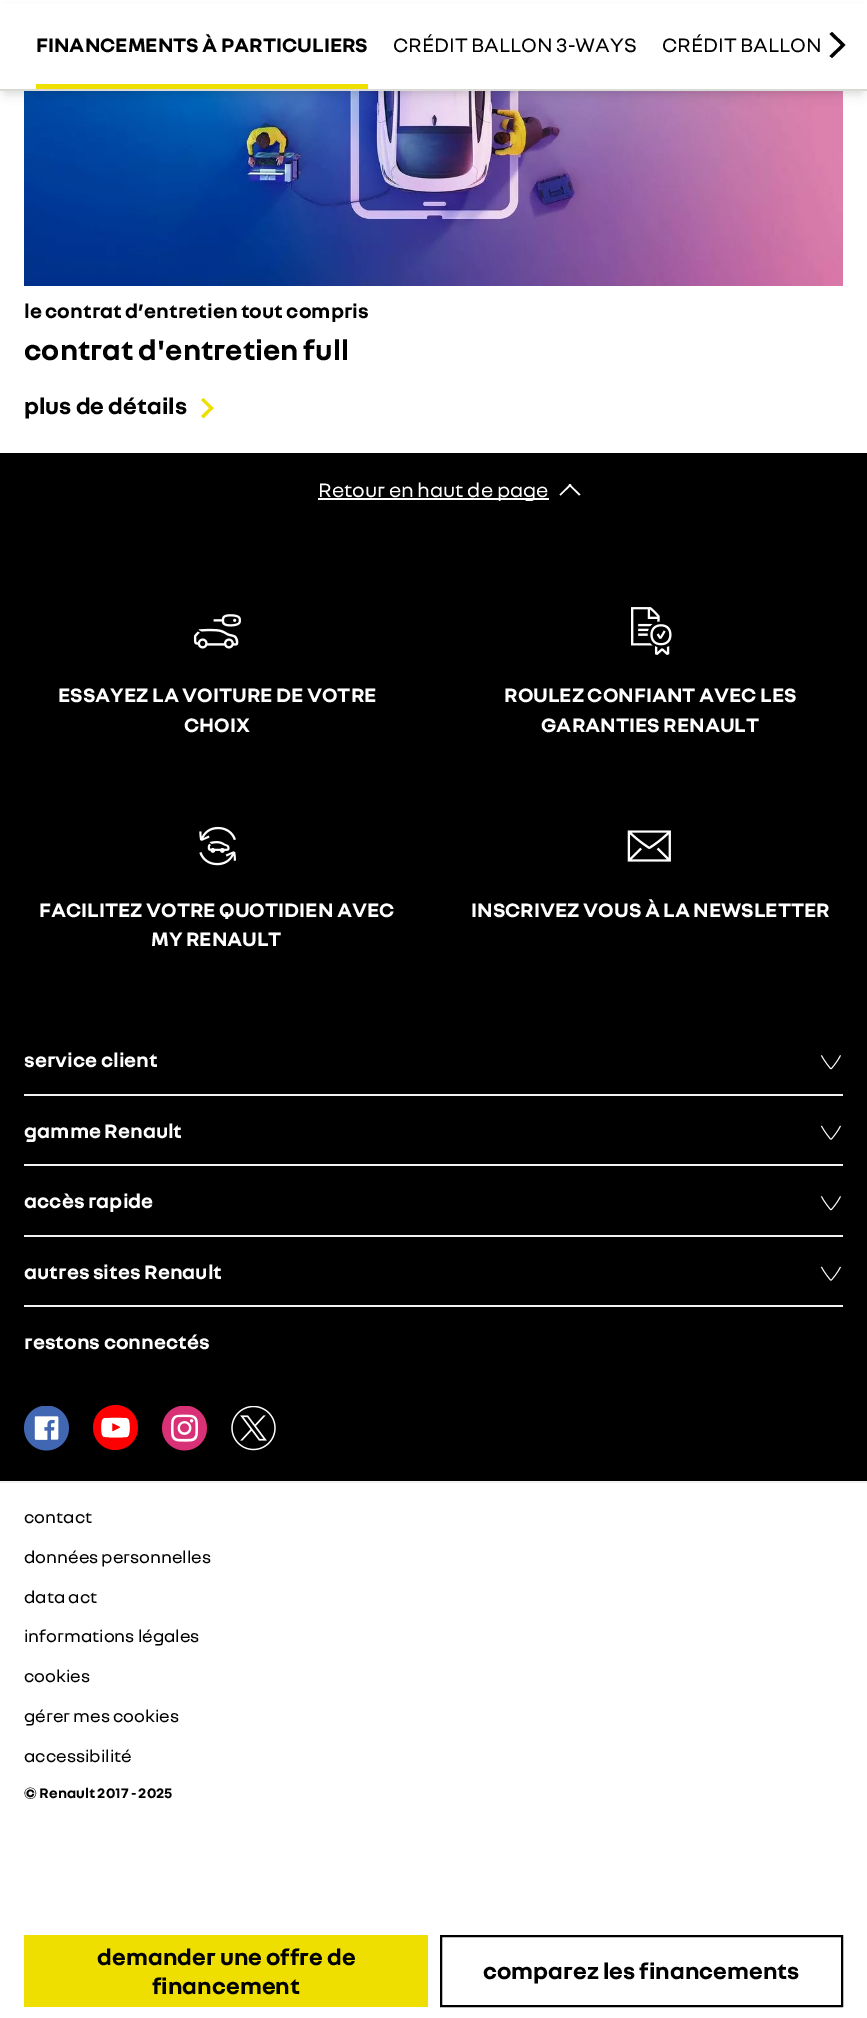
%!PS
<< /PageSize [867 2018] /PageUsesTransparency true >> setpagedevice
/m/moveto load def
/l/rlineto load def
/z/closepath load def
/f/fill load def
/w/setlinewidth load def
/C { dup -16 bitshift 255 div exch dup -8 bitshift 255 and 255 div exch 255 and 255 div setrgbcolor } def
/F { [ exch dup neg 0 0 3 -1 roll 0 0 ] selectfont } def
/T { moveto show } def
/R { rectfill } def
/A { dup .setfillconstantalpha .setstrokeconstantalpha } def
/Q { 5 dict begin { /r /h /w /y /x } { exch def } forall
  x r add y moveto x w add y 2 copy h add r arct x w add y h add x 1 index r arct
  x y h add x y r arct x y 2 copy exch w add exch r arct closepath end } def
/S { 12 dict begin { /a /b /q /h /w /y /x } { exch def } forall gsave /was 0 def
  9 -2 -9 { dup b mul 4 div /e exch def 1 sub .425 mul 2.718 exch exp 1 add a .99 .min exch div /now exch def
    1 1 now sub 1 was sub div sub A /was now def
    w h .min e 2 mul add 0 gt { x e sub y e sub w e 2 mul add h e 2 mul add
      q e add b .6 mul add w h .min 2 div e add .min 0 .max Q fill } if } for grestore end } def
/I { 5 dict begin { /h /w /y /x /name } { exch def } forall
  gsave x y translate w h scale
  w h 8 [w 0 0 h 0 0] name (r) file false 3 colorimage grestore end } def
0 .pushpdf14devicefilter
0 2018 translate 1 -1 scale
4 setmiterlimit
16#FFFFFF C
0 0 867 2018 R
(1.rgb) 24 91 819 195 I
16#000000 C
6 14 855 78 0 6 .2 S
16#FFFFFF C
0 4 867 85 R
16#D9D9D6 C
0 89 867 2 R
/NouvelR-Bold 21 F
16#000000 C
(FINANCEMENTS À PARTICULIERS) 36 52 T
16#EFDF00 C
36 84 332 5 R
/NouvelR-Regular 21 F
16#000000 C
(CRÉDIT BALLON 3-WAYS) 393 52 T
(CRÉDIT BALLON) 662 52 T
832 58 m 13.5 -13 l -13.5 -13 l -2.5 2 l 11.5 11 l -11.5 11 l z f
16#EFDF00 C
24 1935 404 72 R
/NouvelR-Bold 24 F
16#000000 C
(demander une offre de) 97 1965 T
(financement) 152 1994 T
2 w
441 1936 401 70 rectstroke
(comparez les financements) 483 1979 T
/NouvelR-Bold 21 F
(le contrat d’entretien tout compris) 24 318 T
/NouvelR-Bold 30 F
(contrat d'entretien full) 24 360 T
/NouvelR-Bold 24 F
(plus de détails) 24 414 T
16#EFDF00 C
203.5 398 m 10 10 l -2 2.5 l -10.5 -10.5 l z f
211.5 406 m 2 2 l -10 10.5 l -2.5 -2.5 l z f
16#000000 C
0 453 867 1028 R
16#FFFFFF C
318 498 231 2 R
/NouvelR-Regular 21 F
(Retour en haut de page) 318 497 T
559.5 494.5 m 10.5 -10.5 l 1.5 1 l -11 10.5 l z f
569.5 484 m 11 10.5 l -1.5 1 l -10.5 -10.5 l z f
(2.rgb) 193 614 48 35 I
/NouvelR-Bold 21 F
(ESSAYEZ LA VOITURE DE VOTRE) 58 702 T
(CHOIX) 184 732 T
(3.rgb) 631 607 41 48 I
(ROULEZ CONFIANT AVEC LES) 504 702 T
(GARANTIES RENAULT) 541 732 T
(4.rgb) 199 826 37 40 I
(FACILITEZ VOTRE QUOTIDIEN AVEC) 39 917 T
(MY RENAULT) 151 946 T
(5.rgb) 627 830 44 32 I
(INSCRIVEZ VOUS À LA NEWSLETTER) 471 917 T
16#F2F2F2 C
24 1094 819 2 R
16#FFFFFF C
(service client) 24 1067 T
(6.rgb) 820 1055 21 15 I
16#F2F2F2 C
24 1164 819 2 R
16#FFFFFF C
(gamme Renault) 24 1138 T
(7.rgb) 820 1125 21 15 I
16#F2F2F2 C
24 1235 819 2 R
16#FFFFFF C
(accès rapide) 24 1208 T
(6.rgb) 820 1196 21 15 I
16#F2F2F2 C
24 1305 819 2 R
16#FFFFFF C
(autres sites Renault) 24 1279 T
(7.rgb) 820 1266 21 15 I
(restons connectés) 24 1349 T
(8.rgb) 24 1406 45 45 I
(9.rgb) 93 1405 45 45 I
(10.rgb) 162 1406 45 45 I
(11.rgb) 231 1406 45 45 I
16#F2F2F2 C
0 1481 867 2 R
/NouvelR-Regular 18 F
16#000000 C
(contact) 24 1523 T
(données personnelles) 24 1563 T
(data act) 24 1603 T
(informations légales) 24 1642 T
(cookies) 24 1682 T
(gérer mes cookies) 24 1722 T
(accessibilité) 24 1762 T
/NouvelR-Bold 15 F
(© Renault 2017 - 2025) 24 1798 T
.poppdf14devicefilter showpage
